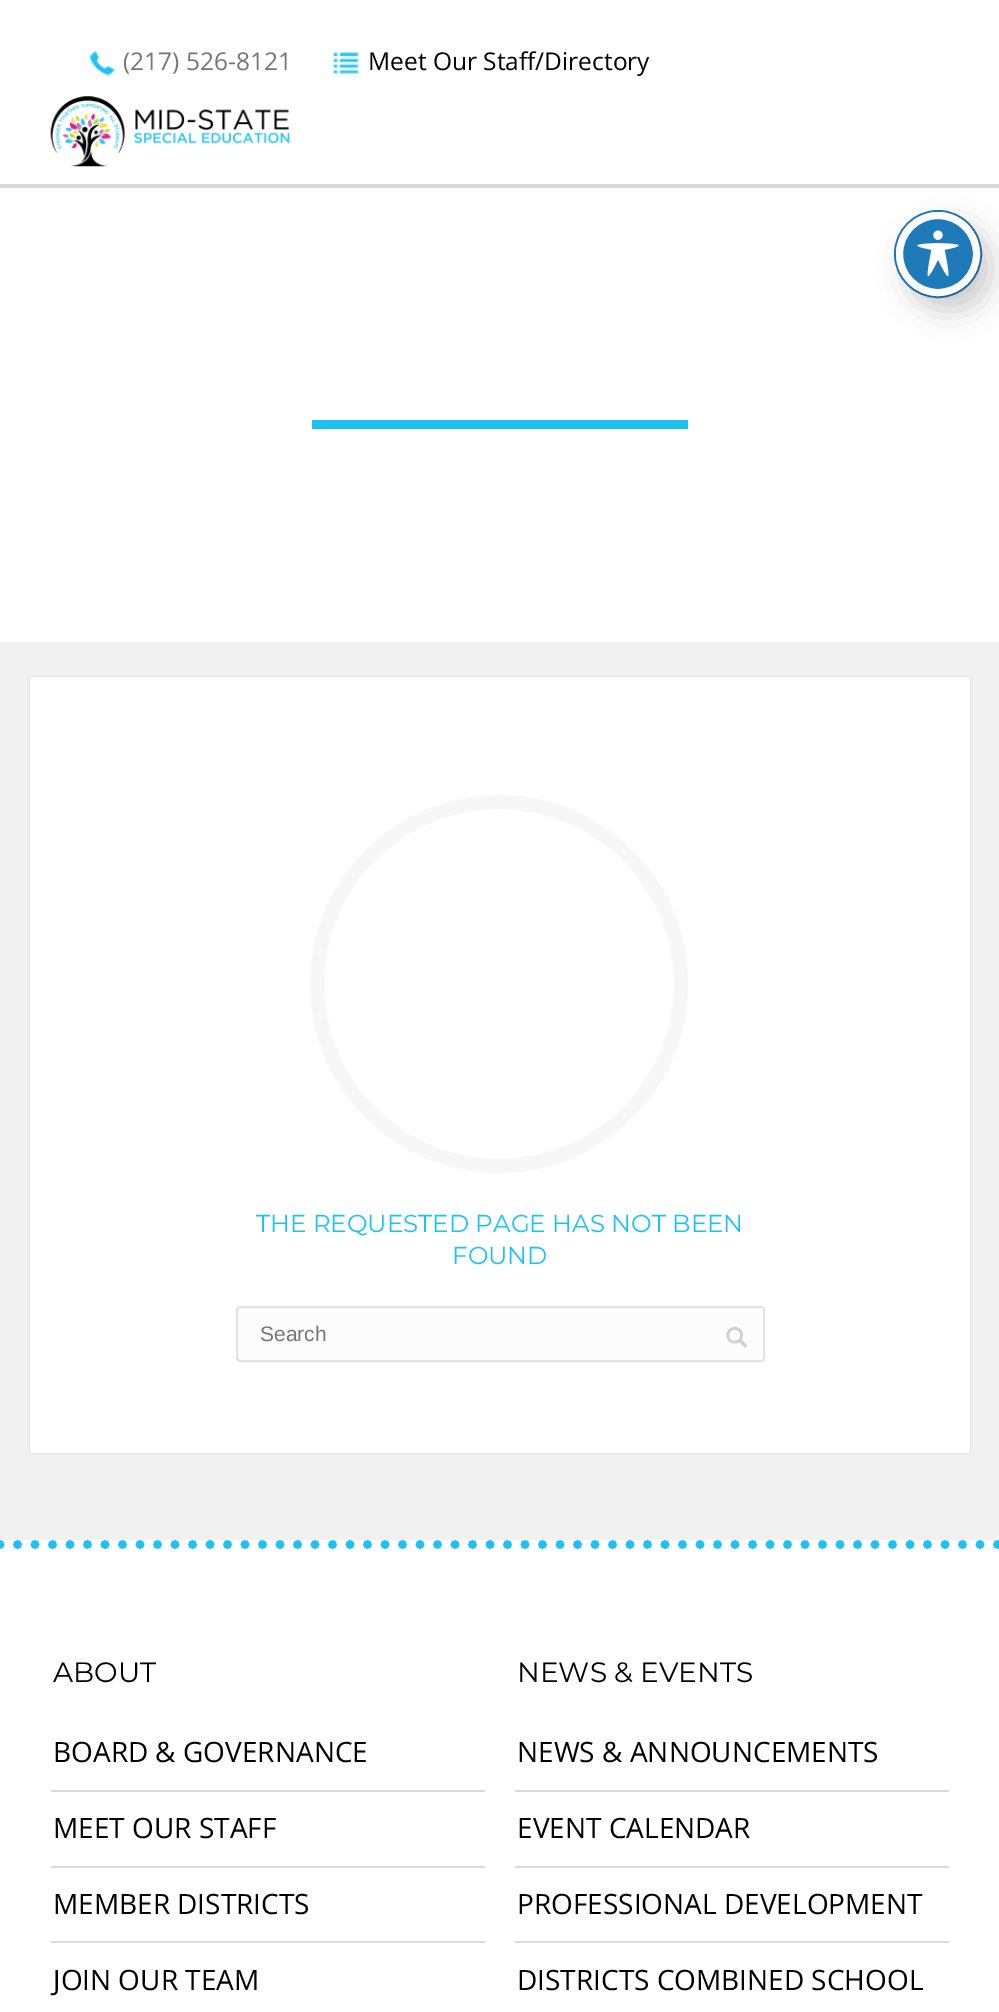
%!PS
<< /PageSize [999 2012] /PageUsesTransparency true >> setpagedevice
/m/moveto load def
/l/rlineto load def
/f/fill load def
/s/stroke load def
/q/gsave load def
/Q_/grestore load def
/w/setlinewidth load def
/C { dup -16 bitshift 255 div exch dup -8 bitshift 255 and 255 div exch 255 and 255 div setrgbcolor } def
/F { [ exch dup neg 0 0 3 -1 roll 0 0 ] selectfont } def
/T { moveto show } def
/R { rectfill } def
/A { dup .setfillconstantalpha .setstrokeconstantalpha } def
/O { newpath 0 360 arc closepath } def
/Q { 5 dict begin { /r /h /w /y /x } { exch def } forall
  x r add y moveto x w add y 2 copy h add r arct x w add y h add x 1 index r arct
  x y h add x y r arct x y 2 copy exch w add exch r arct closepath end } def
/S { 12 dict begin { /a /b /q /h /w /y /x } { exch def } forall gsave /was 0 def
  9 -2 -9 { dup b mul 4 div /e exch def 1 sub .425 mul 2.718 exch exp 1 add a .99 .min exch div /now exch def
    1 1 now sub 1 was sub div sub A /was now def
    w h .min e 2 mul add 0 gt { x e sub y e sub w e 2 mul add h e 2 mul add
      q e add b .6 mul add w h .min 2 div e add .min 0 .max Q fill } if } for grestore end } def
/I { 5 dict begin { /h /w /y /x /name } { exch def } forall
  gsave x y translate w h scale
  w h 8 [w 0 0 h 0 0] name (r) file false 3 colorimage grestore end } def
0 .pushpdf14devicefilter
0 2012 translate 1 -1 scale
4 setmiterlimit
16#F1F1F1 C
0 0 999 2012 R
16#FFFFFF C
0 0 999 642 R
16#D9D9D9 C
0 184 999 4 R
(1.rgb) 89 49 26 28 I
/OpenSans-Regular 24.5 F
16#757575 C
(\(217\) 526-8121) 123 70 T
(2.rgb) 333 52 26 22 I
16#000000 C
(Meet Our Staff/Directory) 368 70 T
(3.rgb) 50 96 240 71 I
16#1CC3F2 C
312 420 376 9 R
16#000000 C
30 677 940 776 0 1 .15 S
16#FFFFFF C
30 677 940 776 R
16#F7F7F7 C
14 w
499 984 182 O s
/Montserrat-Regular 24.5 F
16#1CC3F2 C
(THE REQUESTED PAGE HAS NOT BEEN) 256 1232 T
(FOUND) 452 1264 T
16#FCFCFC C
237 1307 527 54 3 Q q f Q_
16#E3E3E3 C
2 w
s
/LiberationSans-Regular 21 F
16#757575 C
(Search) 260 1341 T
(4.rgb) 726 1326 22 22 I
16#FFFFFF C
0 1540 999 472 R
16#1CC3F2 C
8.8 w
1 setlinecap
[0 17.5] 0 setdash
0 1544.5 m 999 0 l s
/Montserrat-Regular 28 F
16#000000 C
(ABOUT) 53 1682 T
16#DBDBDB C
51 1790 434 2 R
/OpenSans-Regular 28 F
16#000000 C
(BOARD & GOVERNANCE) 53 1762 T
16#DBDBDB C
51 1866 434 2 R
16#000000 C
(MEET OUR STAFF) 53 1838 T
16#DBDBDB C
51 1941 434 2 R
16#000000 C
(MEMBER DISTRICTS) 53 1914 T
(JOIN OUR TEAM) 53 1990 T
/Montserrat-Regular 28 F
(NEWS & EVENTS) 517 1682 T
16#DBDBDB C
515 1790 434 2 R
/OpenSans-Regular 28 F
16#000000 C
(NEWS & ANNOUNCEMENTS) 517 1762 T
16#DBDBDB C
515 1866 434 2 R
16#000000 C
(EVENT CALENDAR) 517 1838 T
16#DBDBDB C
515 1941 434 2 R
16#000000 C
(PROFESSIONAL DEVELOPMENT) 517 1914 T
(DISTRICTS COMBINED SCHOOL) 517 1990 T
16#1E7AB9 C
2 w
0 setlinecap
[] 0 setdash
938 254 43 O s
16#000000 C
907 226 84 84 42 14 .2 S
16#1E7AB9 C
938 254 38.5 O q f Q_
16#FFFFFF C
7 w
s
(5.rgb) 917 230 42 47 I
.poppdf14devicefilter showpage
